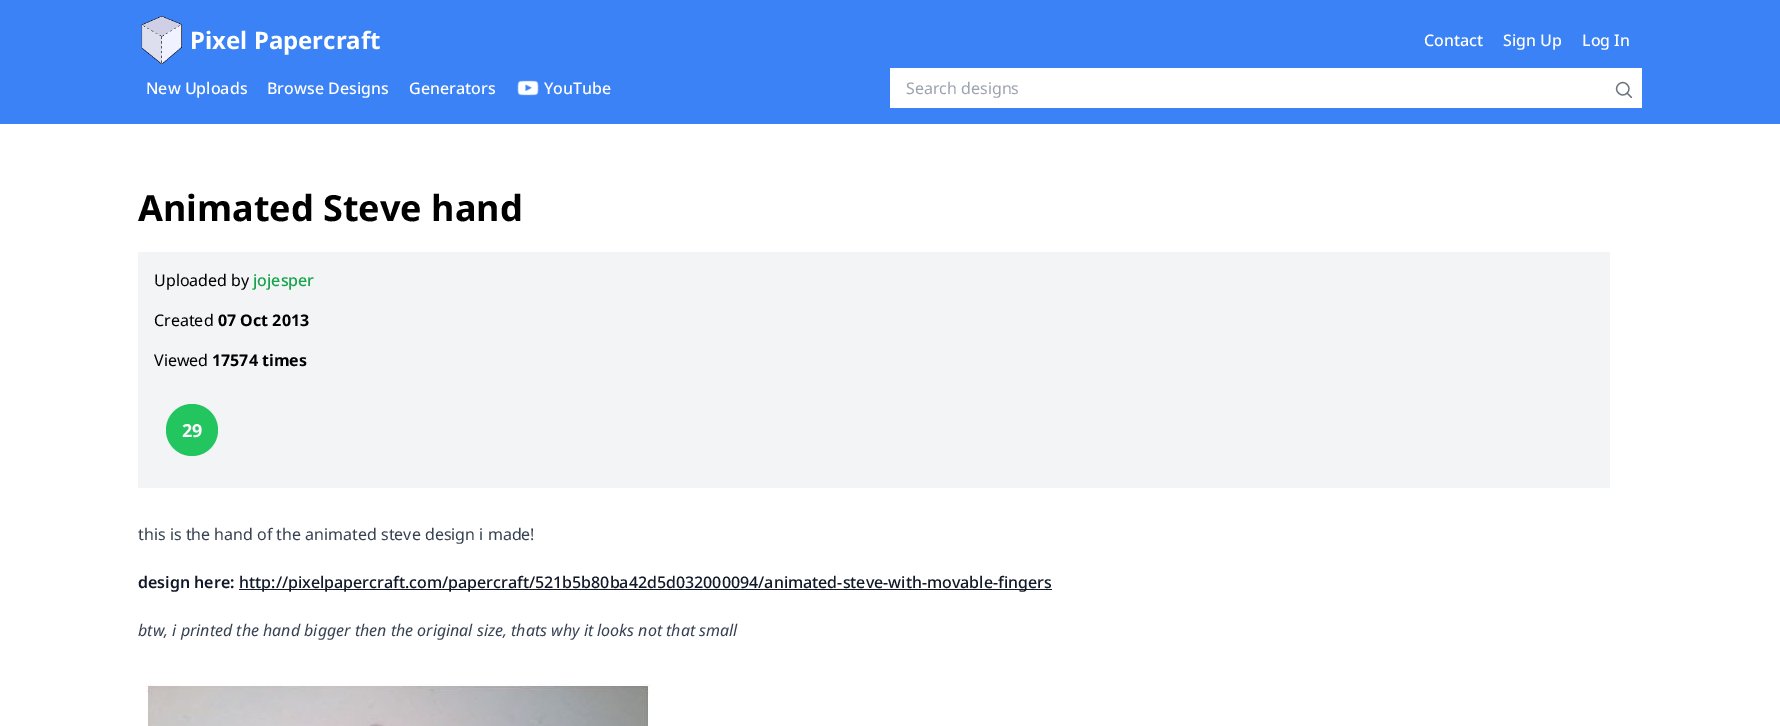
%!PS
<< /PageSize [1780 726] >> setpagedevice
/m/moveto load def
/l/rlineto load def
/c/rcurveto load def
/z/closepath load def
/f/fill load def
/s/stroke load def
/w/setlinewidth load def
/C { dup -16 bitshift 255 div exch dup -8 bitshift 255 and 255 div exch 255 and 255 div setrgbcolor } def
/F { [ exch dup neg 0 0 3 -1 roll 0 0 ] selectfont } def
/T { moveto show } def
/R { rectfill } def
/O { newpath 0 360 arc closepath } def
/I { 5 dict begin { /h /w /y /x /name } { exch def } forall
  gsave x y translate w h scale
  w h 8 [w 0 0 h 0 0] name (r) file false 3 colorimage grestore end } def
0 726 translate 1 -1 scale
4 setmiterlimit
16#FFFFFF C
0 0 1780 726 R
16#3B82F6 C
0 0 1780 124 R
(1.rgb) 141 16 41 48 I
/NotoSans-Bold 24 F
16#FFFFFF C
(Pixel Papercraft) 190 49 T
/NotoSans-Medium 16 F
(Contact) 1424 46 T
(Sign Up) 1503 46 T
(Log In) 1582 46 T
(New Uploads) 146 94 T
(Browse Designs) 267 94 T
(Generators) 409 94 T
(2.rgb) 517 80 22 16 I
(YouTube) 544 94 T
890 68 752 40 R
/NotoSans-Regular 16 F
16#9CA3AF C
(Search designs) 906 94 T
16#6B7280 C
1.2 w
1 setlinecap
1 setlinejoin
1631.5 97.5 m -4.5 -4.5 l 1627 93 m 6 -5.5 -3 -14.5 -8.5 -8.5 c -6 5.5 3 14.5 8.5 8.5 c z s
/NotoSans-Bold 36 F
16#000000 C
(Animated Steve hand) 138 221 T
16#F3F4F6 C
138 252 1472 236 R
/NotoSans-Regular 16 F
16#000000 C
(Uploaded by) 154 286 T
/NotoSans-Medium 16 F
16#16A34A C
(jojesper) 253 286 T
/NotoSans-Regular 16 F
16#000000 C
(Created) 154 326 T
/NotoSans-Bold 16 F
(07 Oct 2013) 218 326 T
/NotoSans-Regular 16 F
(Viewed) 154 366 T
/NotoSans-Bold 16 F
(17574 times) 212 366 T
16#22C55E C
192 430 26 O f
/NotoSans-Bold 18 F
16#FFFFFF C
(29) 182 437 T
/NotoSans-Regular 16 F
16#374151 C
(this is the hand of the animated steve design i made!) 138 540 T
/NotoSans-SemiBold 16 F
16#111827 C
(design here:) 138 588 T
239 589 813 1 R
/NotoSans-Medium 16 F
(http://pixelpapercraft.com/papercraft/521b5b80ba42d5d032000094/animated-steve-with-movable-fingers) 239 588 T
/NotoSans-Italic 16 F
16#374151 C
(btw, i printed the hand bigger then the original size, thats why it looks not that small) 138 636 T
(3.rgb) 146 684 504 42 I
showpage
